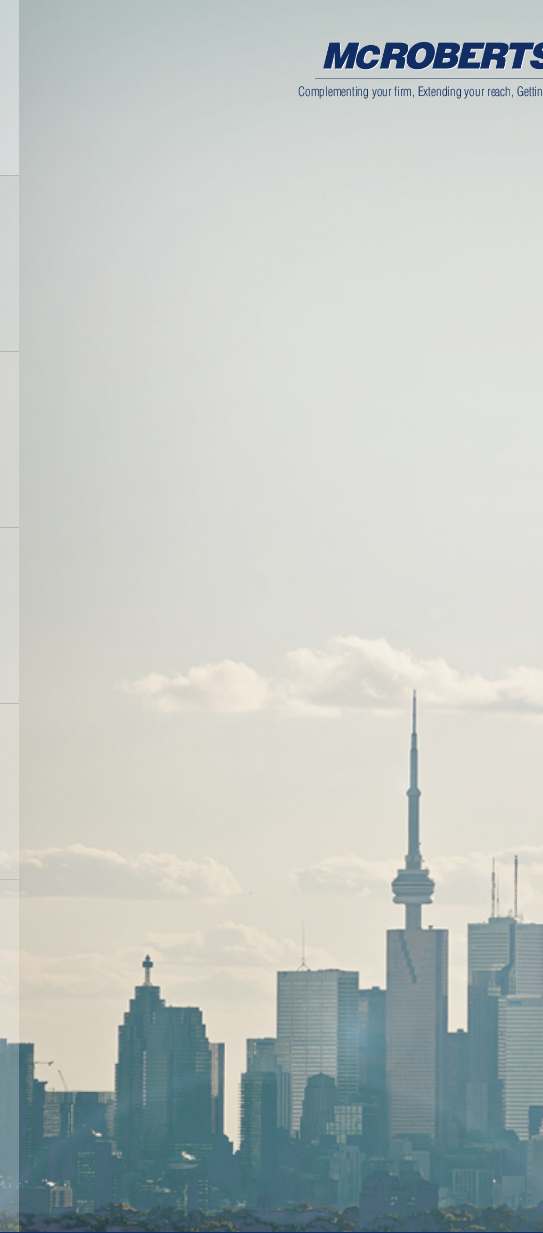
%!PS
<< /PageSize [543 1233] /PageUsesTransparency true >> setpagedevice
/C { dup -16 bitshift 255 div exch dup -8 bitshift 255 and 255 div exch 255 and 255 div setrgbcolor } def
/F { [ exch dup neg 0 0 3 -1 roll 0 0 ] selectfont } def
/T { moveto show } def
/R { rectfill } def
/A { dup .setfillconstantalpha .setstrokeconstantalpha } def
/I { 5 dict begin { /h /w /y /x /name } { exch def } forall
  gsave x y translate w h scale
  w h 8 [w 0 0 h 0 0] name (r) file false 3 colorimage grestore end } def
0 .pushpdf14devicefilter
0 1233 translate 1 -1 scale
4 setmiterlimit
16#FFFFFF C
0 0 543 1233 R
(1.rgb) 0 0 543 1232 I
0.4 A
0 0 19 175 R
1 A
16#B0B7B5 C
0 175 19 1 R
0.25 A
16#FFFFFF C
0 176 19 175 R
1 A
16#B1B6B3 C
0 351 19 1 R
0.25 A
16#FFFFFF C
0 352 19 175 R
1 A
16#B1B5B1 C
0 527 19 1 R
0.25 A
16#FFFFFF C
0 528 19 175 R
1 A
16#B8B9B2 C
0 703 19 1 R
0.25 A
16#FFFFFF C
0 704 19 176 R
16#74817E C
0 879 19 1 R
16#FFFFFF C
0 880 19 176 R
16#74817E C
0 1055 19 1 R
16#FFFFFF C
0 1056 19 176 R
16#74817E C
0 1231 19 1 R
1 A
16#102E64 C
0 1232 543 1 R
16#778499 C
315 78 228 1 R
(2.rgb) 323 42 220 28 I
/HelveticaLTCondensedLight-Light 12.75 F
16#102E64 C
(Complementing your firm, Extending your reach, Gettin) 298 96 T
.poppdf14devicefilter showpage
